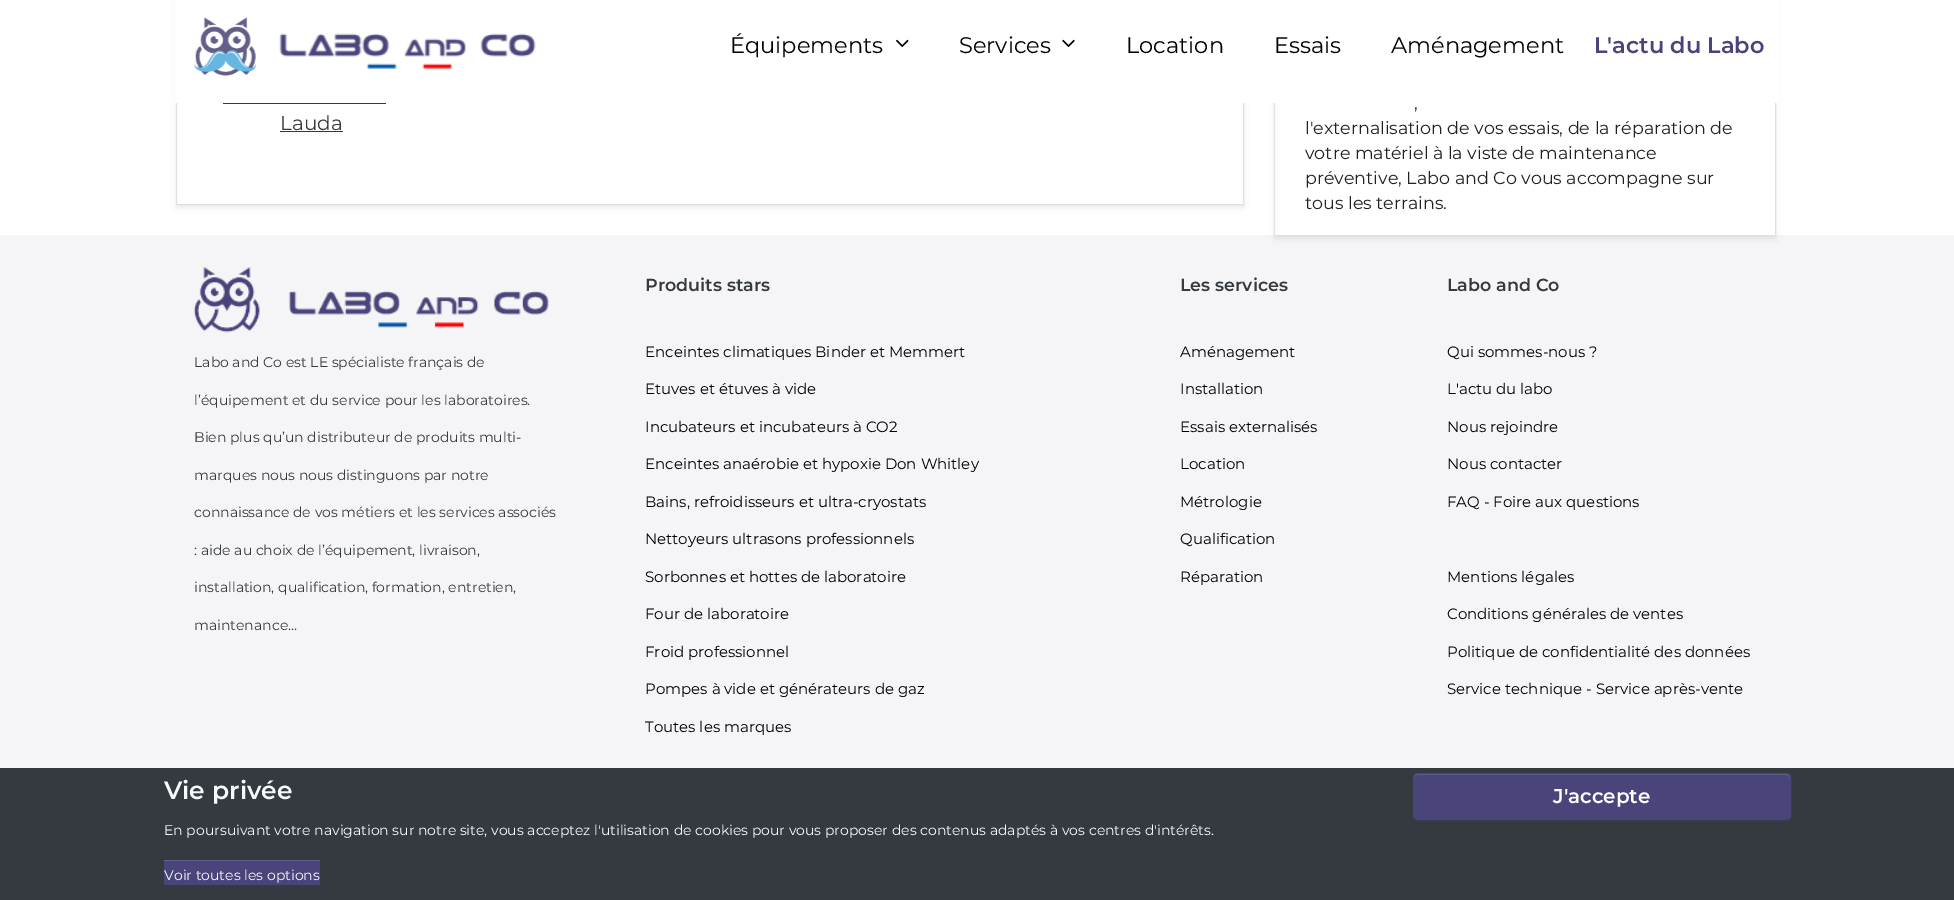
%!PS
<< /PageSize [1954 900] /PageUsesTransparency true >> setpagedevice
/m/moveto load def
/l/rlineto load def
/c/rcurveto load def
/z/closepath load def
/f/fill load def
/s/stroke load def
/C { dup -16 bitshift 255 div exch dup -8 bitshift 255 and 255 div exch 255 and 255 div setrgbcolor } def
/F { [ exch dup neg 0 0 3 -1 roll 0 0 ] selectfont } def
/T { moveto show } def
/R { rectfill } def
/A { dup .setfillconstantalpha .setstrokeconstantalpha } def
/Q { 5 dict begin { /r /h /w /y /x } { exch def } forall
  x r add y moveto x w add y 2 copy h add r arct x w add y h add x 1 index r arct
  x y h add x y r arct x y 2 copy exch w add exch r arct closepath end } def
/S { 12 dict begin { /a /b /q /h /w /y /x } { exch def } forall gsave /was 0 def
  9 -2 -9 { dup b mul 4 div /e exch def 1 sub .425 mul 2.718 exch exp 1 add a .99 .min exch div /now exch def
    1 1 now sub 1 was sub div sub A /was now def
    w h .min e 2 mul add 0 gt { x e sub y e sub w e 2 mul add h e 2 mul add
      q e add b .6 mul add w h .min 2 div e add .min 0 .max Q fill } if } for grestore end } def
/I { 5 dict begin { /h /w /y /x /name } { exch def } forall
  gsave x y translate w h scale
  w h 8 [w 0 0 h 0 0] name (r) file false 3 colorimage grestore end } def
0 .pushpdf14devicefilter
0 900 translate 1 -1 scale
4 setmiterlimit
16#FFFFFF C
0 0 1954 900 R
16#000000 C
176 -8 1068 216 0 2.5 .07 S
16#FFFFFF C
177 103 1066 101 R
16#DEE2E6 C
176.5 -.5 1067 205 rectstroke
16#F5F5F7 C
0 235 1954 533 R
16#000000 C
1274 -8 502 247 0 2.5 .07 S
16#FFFFFF C
1275 103 500 132 R
16#DEE2E6 C
1274.5 -.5 501 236 rectstroke
16#FFFFFF C
175 0 1604 103 R
(1.rgb) 193 17 63 59 I
(2.rgb) 279 33 257 36 I
/Montserrat-Regular 22.5 F
16#000000 C
(Équipements) 730 53 T
(3.rgb) 896 39 13 9 I
(Services) 959 53 T
(4.rgb) 1062 39 13 9 I
(Location) 1126 53 T
(Essais) 1274 53 T
(Aménagement) 1391 53 T
/Montserrat-SemiBold 22.5 F
16#49457A C
(L'actu du Labo) 1594 53 T
16#343A40 C
223 103 163 1 R
/Montserrat-Regular 20 F
(Lauda) 280 130 T
280 131 63 1 R
/Montserrat-Regular 17.5 F
16#212121 C
(,) 1414 109 T
(l'externalisation de vos essais, de la réparation de) 1305 134 T
(votre matériel à la viste de maintenance) 1305 159 T
(préventive, Labo and Co vous accompagne sur) 1305 184 T
(tous les terrains.) 1305 209 T
(5.rgb) 193 267 356 66 I
/Montserrat-Regular 14 F
16#343A40 C
(Labo and Co est LE spécialiste français de) 194 367 T
(l’équipement et du service pour les laboratoires.) 194 405 T
(Bien plus qu’un distributeur de produits multi-) 194 442 T
(marques nous nous distinguons par notre) 194 480 T
(connaissance de vos métiers et les services associés) 194 517 T
(: aide au choix de l’équipement, livraison,) 194 555 T
(installation, qualification, formation, entretien,) 194 592 T
(maintenance…) 194 630 T
/Montserrat-SemiBold 17.5 F
(Produits stars) 645 291 T
/Montserrat-Regular 15 F
16#000000 C
(Enceintes climatiques Binder et Memmert) 645 357 T
(Etuves et étuves à vide) 645 394 T
(Incubateurs et incubateurs à CO2) 645 432 T
(Enceintes anaérobie et hypoxie Don Whitley) 645 469 T
(Bains, refroidisseurs et ultra-cryostats) 645 507 T
(Nettoyeurs ultrasons professionnels) 645 544 T
(Sorbonnes et hottes de laboratoire) 645 582 T
(Four de laboratoire) 645 619 T
(Froid professionnel) 645 657 T
(Pompes à vide et générateurs de gaz) 645 694 T
(Toutes les marques) 645 732 T
/Montserrat-SemiBold 17.5 F
16#343A40 C
(Les services) 1180 291 T
/Montserrat-Regular 15 F
16#000000 C
(Aménagement) 1180 357 T
(Installation) 1180 394 T
(Essais externalisés) 1180 432 T
(Location) 1180 469 T
(Métrologie) 1180 507 T
(Qualification) 1180 544 T
(Réparation) 1180 582 T
/Montserrat-SemiBold 17.5 F
16#343A40 C
(Labo and Co) 1447 291 T
/Montserrat-Regular 15 F
16#000000 C
(Qui sommes-nous ?) 1447 357 T
(L'actu du labo) 1447 394 T
(Nous rejoindre) 1447 432 T
(Nous contacter) 1447 469 T
(FAQ - Foire aux questions) 1447 507 T
(Mentions légales) 1447 582 T
(Conditions générales de ventes) 1447 619 T
(Politique de confidentialité des données) 1447 657 T
(Service technique - Service après-vente) 1447 694 T
16#343A40 C
0 768 1954 132 R
/Montserrat-SemiBold 25 F
16#F8F9FA C
(Vie privée) 164 799 T
16#49457A C
1413 773 378 47 5 Q f
16#64618E C
1418 775 m 368 0 l 2 0 4 2 4 4 c 0 -3 -1 -5 -4 -5 c -368 0 l -3 0 -4 2 -4 5 c 0 -2 1 -4 4 -4 c z f
16#49457A C
1413.5 773.5 377 46 4.5 Q s
/Montserrat-SemiBold 20 F
16#FFFFFF C
(J'accepte) 1553 803 T
/Montserrat-Regular 14 F
16#F8F9FA C
(En poursuivant votre navigation sur notre site, vous acceptez l'utilisation de cookies pour vous proposer des contenus adaptés à vos centres d'intérêts.) 164 835 T
16#49457A C
164 861 156 24 R
16#64618E C
164 860 156 1 R
16#F8F9FA C
(Voir toutes les options) 164 880 T
.poppdf14devicefilter showpage
